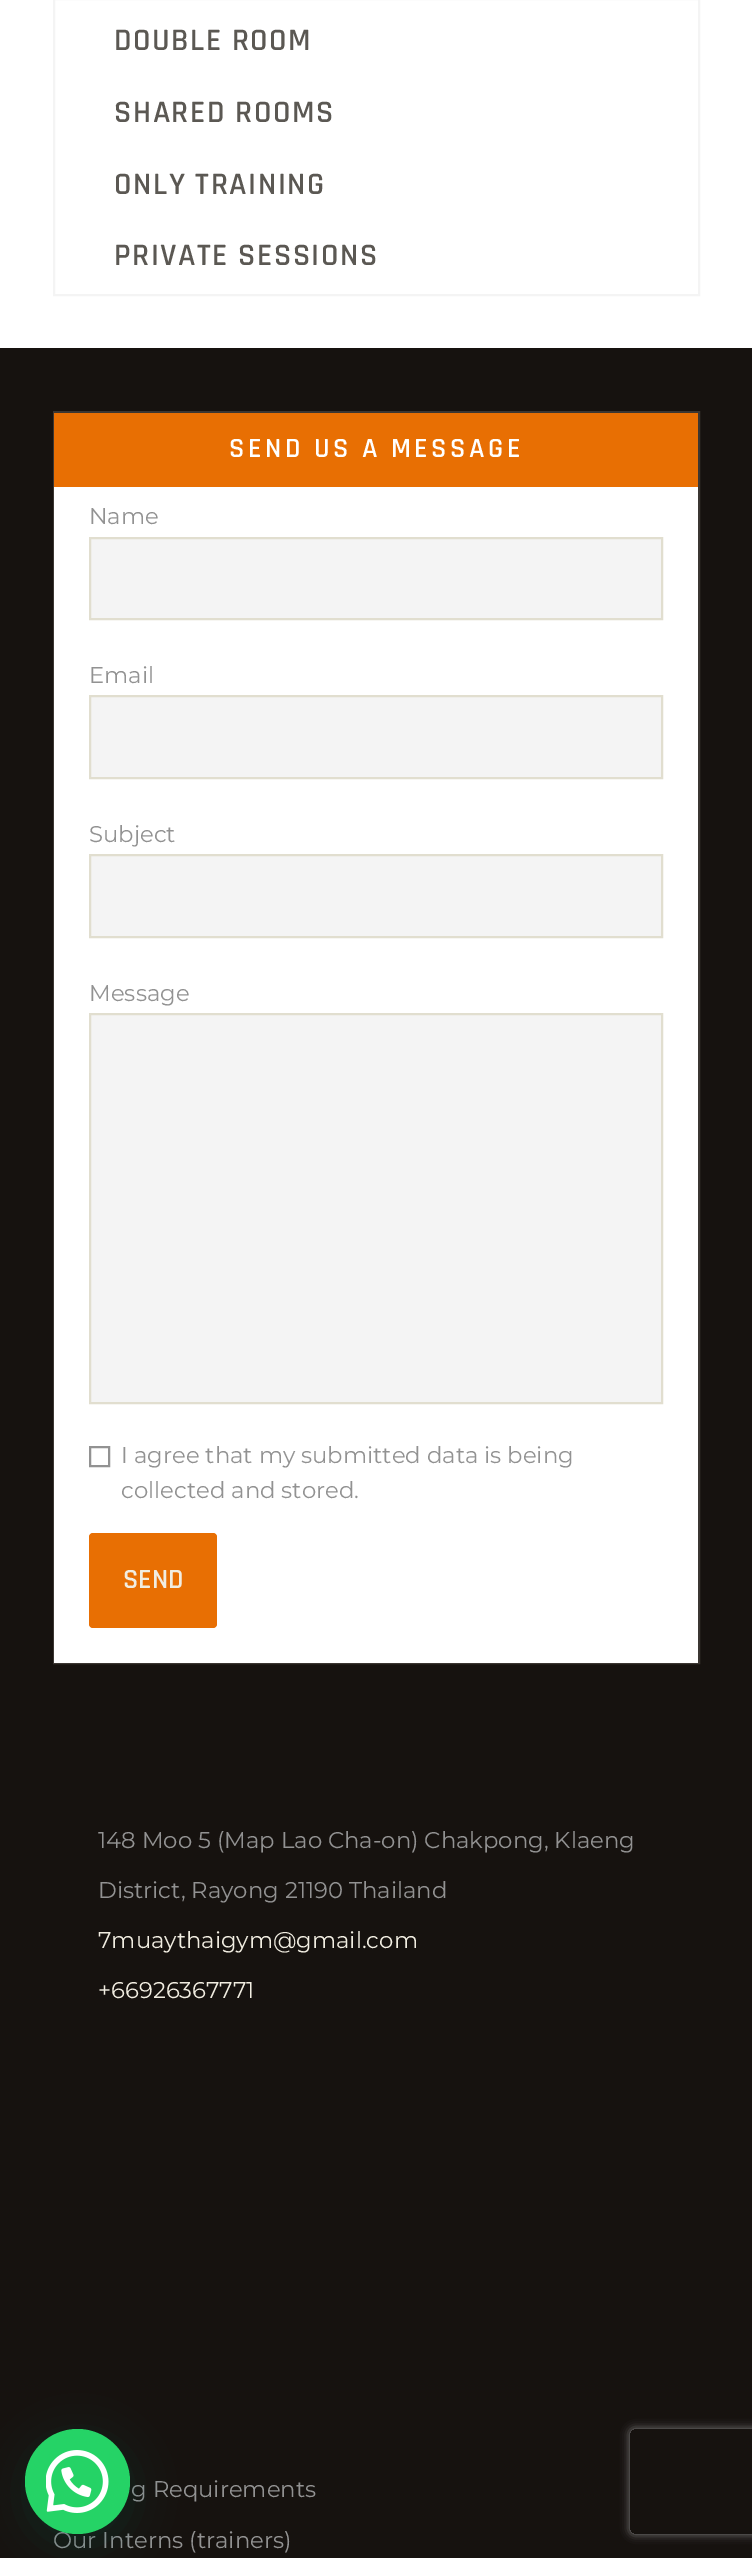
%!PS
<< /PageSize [752 2558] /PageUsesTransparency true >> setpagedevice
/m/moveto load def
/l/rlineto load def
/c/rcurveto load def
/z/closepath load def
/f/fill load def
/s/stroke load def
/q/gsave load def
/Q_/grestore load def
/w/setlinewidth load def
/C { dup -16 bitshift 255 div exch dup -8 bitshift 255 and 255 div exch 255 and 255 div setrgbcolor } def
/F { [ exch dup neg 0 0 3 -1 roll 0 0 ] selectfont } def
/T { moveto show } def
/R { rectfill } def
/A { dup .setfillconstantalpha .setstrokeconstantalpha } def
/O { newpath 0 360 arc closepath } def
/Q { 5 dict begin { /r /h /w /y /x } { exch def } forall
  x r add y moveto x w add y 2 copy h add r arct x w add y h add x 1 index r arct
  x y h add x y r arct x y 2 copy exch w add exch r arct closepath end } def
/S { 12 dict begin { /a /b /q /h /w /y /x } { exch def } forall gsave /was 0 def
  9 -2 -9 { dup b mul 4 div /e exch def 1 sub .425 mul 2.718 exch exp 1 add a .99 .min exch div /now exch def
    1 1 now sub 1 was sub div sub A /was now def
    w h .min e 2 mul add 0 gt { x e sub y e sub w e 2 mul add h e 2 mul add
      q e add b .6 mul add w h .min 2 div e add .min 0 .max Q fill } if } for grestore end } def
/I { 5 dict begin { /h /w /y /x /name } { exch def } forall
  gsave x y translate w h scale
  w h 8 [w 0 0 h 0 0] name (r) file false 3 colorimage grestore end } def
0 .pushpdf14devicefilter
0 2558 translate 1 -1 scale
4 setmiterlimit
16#FFFFFF C
0 0 752 2558 R
16#F4F4F4 C
2 w
54 -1 645 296 rectstroke
/Rajdhani-SemiBold 31.5 F
16#5B5853 C
114 50 m 1.6 0 (DOUBLE ROOM) ashow
114 122 m 1.6 0 (SHARED ROOMS) ashow
114 194 m 1.6 0 (ONLY TRAINING) ashow
114 265 m 1.6 0 (PRIVATE SESSIONS) ashow
16#16120F C
0 348 752 2210 R
16#3B3632 C
54 412 645 1251 rectstroke
16#E86F03 C
54 413 644 74 R
/Rajdhani-SemiBold 28 F
16#FFFFFF C
229 457 m 3.5 0 (SEND US A MESSAGE) ashow
54 487 644 1176 R
/Montserrat-Thin 22.75 F
16#929292 C
(Name) 89 524 T
16#F4F4F4 C
90 538 m 572 0 l 0 81 l -572 0 l z q f Q_
16#E1DECF C
s
16#929292 C
(Email) 89 683 T
16#F4F4F4 C
90 696 m 572 0 l 0 82 l -572 0 l z q f Q_
16#E1DECF C
s
16#929292 C
(Subject) 89 842 T
16#F4F4F4 C
90 855 m 572 0 l 0 82 l -572 0 l z q f Q_
16#E1DECF C
s
16#929292 C
(Message) 89 1001 T
16#F4F4F4 C
90 1014 m 572 0 l 0 389 l -572 0 l z q f Q_
16#E1DECF C
s
16#929292 C
90 1447 19 19 rectstroke
(I agree that my submitted data is being) 121 1463 T
(collected and stored.) 121 1498 T
16#E86F03 C
89 1533 128 95 4 Q f
/Rajdhani-SemiBold 28 F
16#F1EDE1 C
(SEND) 123 1588 T
/Montserrat-Thin 22.75 F
16#929292 C
(148 Moo 5 \(Map Lao Cha-on\) Chakpong, Klaeng) 98 1848 T
(District, Rayong 21190 Thailand) 98 1898 T
16#F1EDE1 C
(7muaythaigym@gmail.com) 98 1948 T
(+66926367771) 98 1998 T
16#929292 C
(g Requirements) 131 2497 T
(Our Interns \(trainers\)) 53 2548 T
16#075E54 C
26 2440 105 105 52.5 21 .24 S
16#25D366 C
77.5 2481.5 52.5 O f
(1.rgb) 46 2450 63 63 I
q
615 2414 m 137 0 l 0 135 l -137 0 l z 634 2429 m 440 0 l 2 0 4 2 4 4 c 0 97 l 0 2 -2 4 -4 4 c -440 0 l -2 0 -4 -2 -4 -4 c 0 -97 l 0 -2 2 -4 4 -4 c z eoclip newpath
16#808080 C
630 2429 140 105 4 4.5 1 S
Q_
.poppdf14devicefilter showpage
